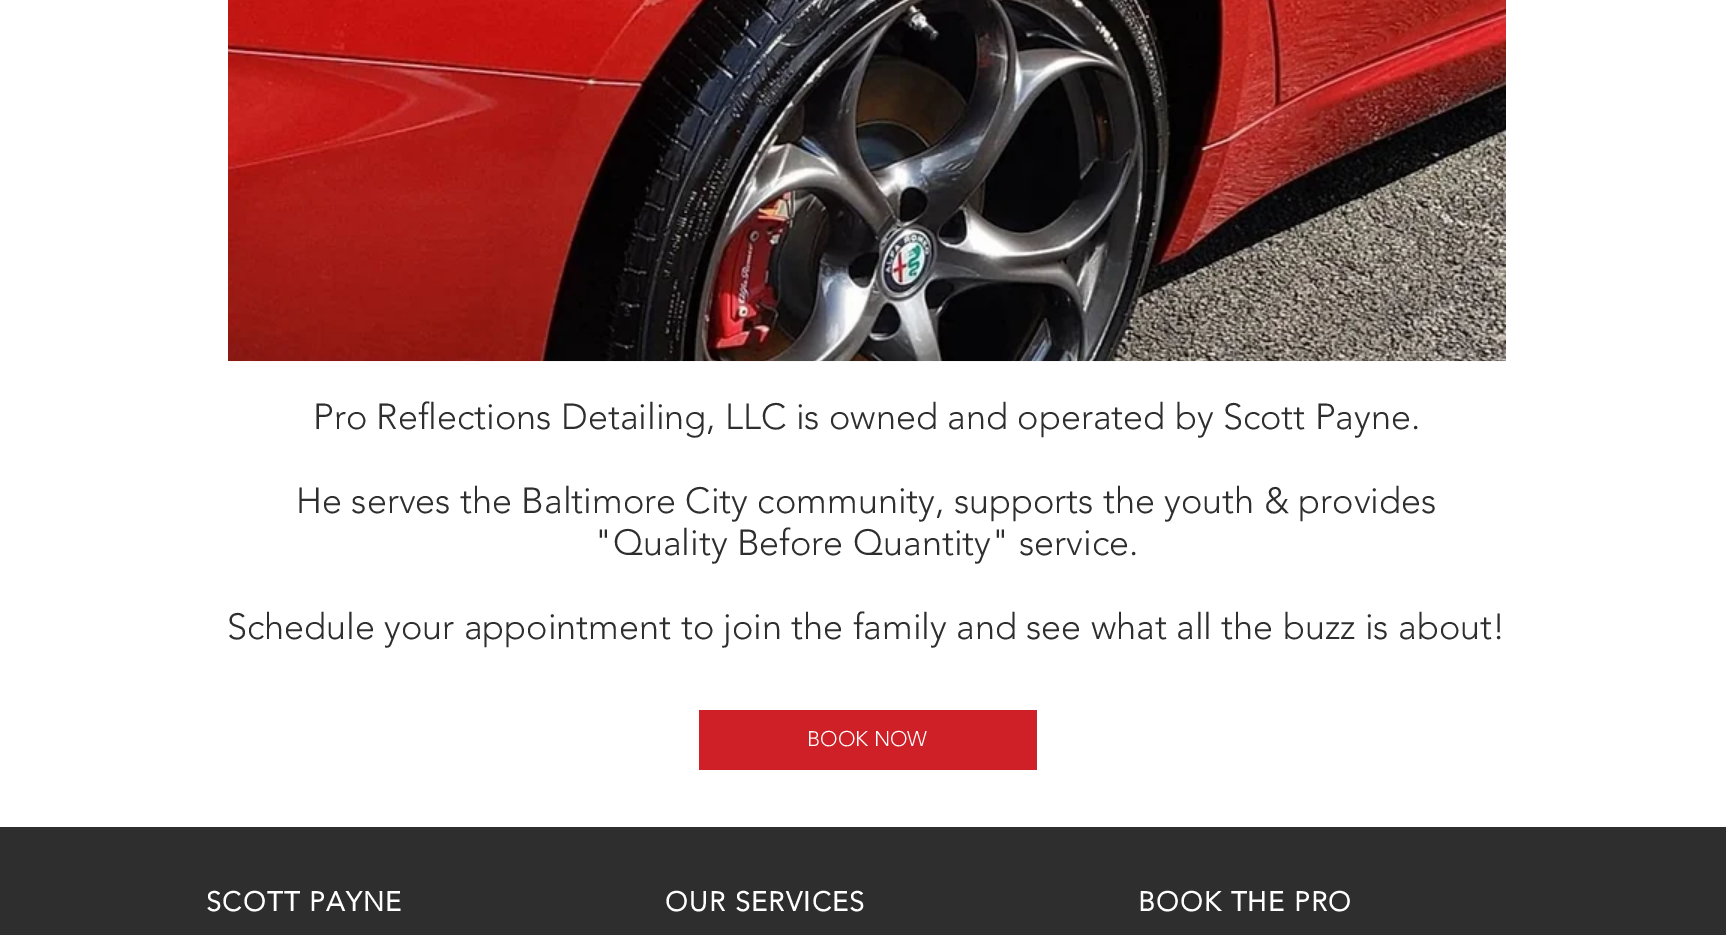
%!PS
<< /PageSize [1726 935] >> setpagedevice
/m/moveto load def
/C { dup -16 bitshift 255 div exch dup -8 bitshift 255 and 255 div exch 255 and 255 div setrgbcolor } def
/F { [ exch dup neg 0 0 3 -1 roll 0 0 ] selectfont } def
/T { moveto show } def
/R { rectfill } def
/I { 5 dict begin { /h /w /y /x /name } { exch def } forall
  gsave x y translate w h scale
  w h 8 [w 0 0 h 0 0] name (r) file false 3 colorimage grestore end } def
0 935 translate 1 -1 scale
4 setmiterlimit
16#FFFFFF C
0 0 1726 935 R
(1.rgb) 228 0 1278 362 I
/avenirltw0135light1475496-Light 36 F
16#2F2E2E C
(Pro Reflections Detailing, LLC is owned and operated by Scott Payne.) 313 429 T
(He serves the Baltimore City community, supports the youth & provides) 296 513 T
("Quality Before Quantity" service.) 594 555 T
(Schedule your appointment to join the family and see what all the buzz is about!) 227 639 T
16#CE2026 C
699 710 338 60 R
/avenirltw0135light1475496-Light 21 F
16#FFFFFF C
(BOOK NOW) 807 746 T
16#2F2E2E C
0 827 1726 108 R
/avenirltw0135light1475496-Bold 27 F
16#FFFFFF C
206 911 m 1.4 0 (SCOTT PAYNE) ashow
665 911 m 1.4 0 (OUR SERVICES) ashow
1138 911 m 1.4 0 (BOOK THE PRO) ashow
showpage
